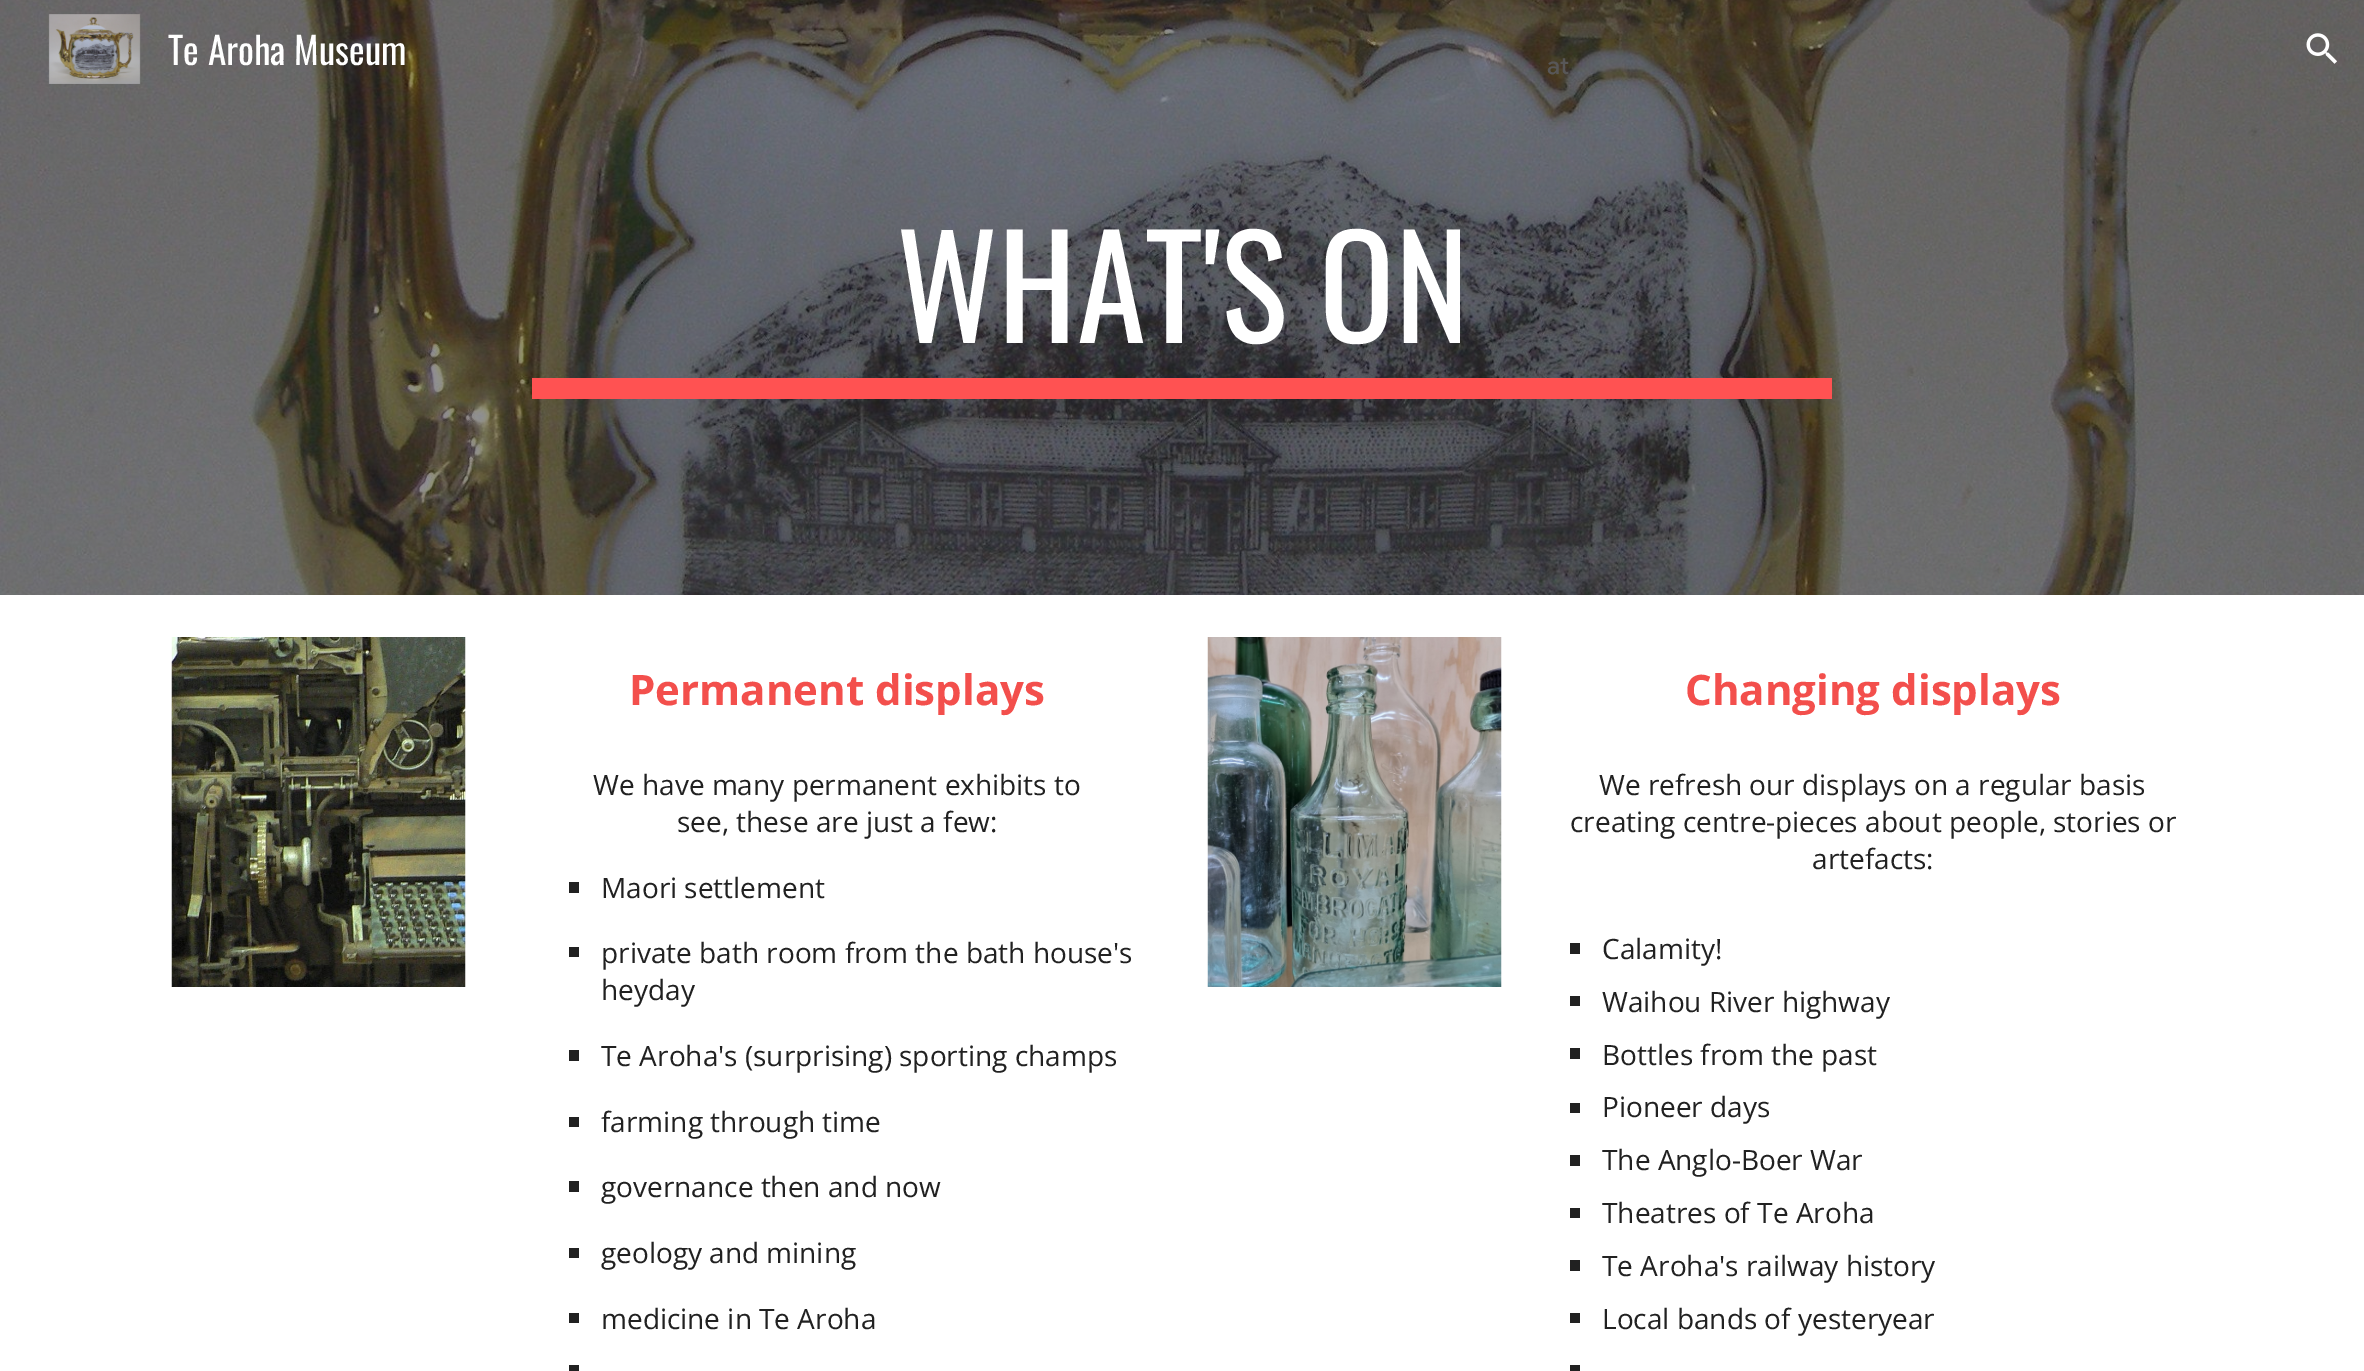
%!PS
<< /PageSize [2364 1371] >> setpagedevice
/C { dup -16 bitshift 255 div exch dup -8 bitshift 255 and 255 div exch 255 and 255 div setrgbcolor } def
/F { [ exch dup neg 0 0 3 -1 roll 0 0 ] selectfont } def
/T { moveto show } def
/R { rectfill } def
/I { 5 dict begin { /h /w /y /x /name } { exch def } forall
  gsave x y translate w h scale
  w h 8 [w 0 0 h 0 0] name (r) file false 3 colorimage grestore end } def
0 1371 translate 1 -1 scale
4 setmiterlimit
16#FFFFFF C
0 0 2364 1371 R
(3.rgb) 0 0 2364 595 I
(1.rgb) 48 14 93 70 I
/Oswald-Regular 37.25 F
(Te Aroha Museum) 168 65 T
(2.rgb) 2306 33 31 31 I
/Oswald-Regular 140 F
(WHAT'S ON) 896 343 T
16#FF5252 C
532 378 1300 21 R
(4.rgb) 171 637 295 350 I
/OpenSans-Bold 42 F
16#F34F4C C
(Permanent displays) 629 705 T
/OpenSans-Regular 28 F
16#212121 C
(We have many permanent exhibits to) 593 795 T
(see, these are just a few:) 677 832 T
569 882 10 11 R
(Maori settlement) 601 898 T
569 947 10 10 R
(private bath room from the bath house's) 601 963 T
(heyday) 601 1000 T
569 1050 10 11 R
(Te Aroha's \(surprising\) sporting champs) 601 1066 T
569 1117 10 10 R
(farming through time) 601 1132 T
569 1181 10 11 R
(governance then and now) 601 1197 T
569 1248 10 10 R
(geology and mining) 601 1263 T
569 1313 10 10 R
(medicine in Te Aroha) 601 1329 T
569 1365 10 6 R
(5.rgb) 1207 637 295 350 I
/OpenSans-Bold 42 F
16#F34F4C C
(Changing displays) 1685 705 T
/OpenSans-Regular 28 F
16#212121 C
(We refresh our displays on a regular basis) 1599 795 T
(creating centre-pieces about people, stories or) 1570 832 T
(artefacts:) 1812 869 T
1570 943 10 11 R
(Calamity!) 1602 959 T
1570 996 10 10 R
(Waihou River highway) 1602 1012 T
1570 1048 10 11 R
(Bottles from the past) 1602 1065 T
1570 1103 10 10 R
(Pioneer days) 1602 1117 T
1570 1155 10 11 R
(The Anglo-Boer War) 1602 1170 T
1570 1208 10 10 R
(Theatres of Te Aroha) 1602 1223 T
1570 1260 10 11 R
(Te Aroha's railway history) 1602 1276 T
1570 1313 10 10 R
(Local bands of yesteryear) 1602 1329 T
1570 1365 10 6 R
/GoogleSans-Medium 24 F
16#585758 C
(at) 1547 74 T
showpage
